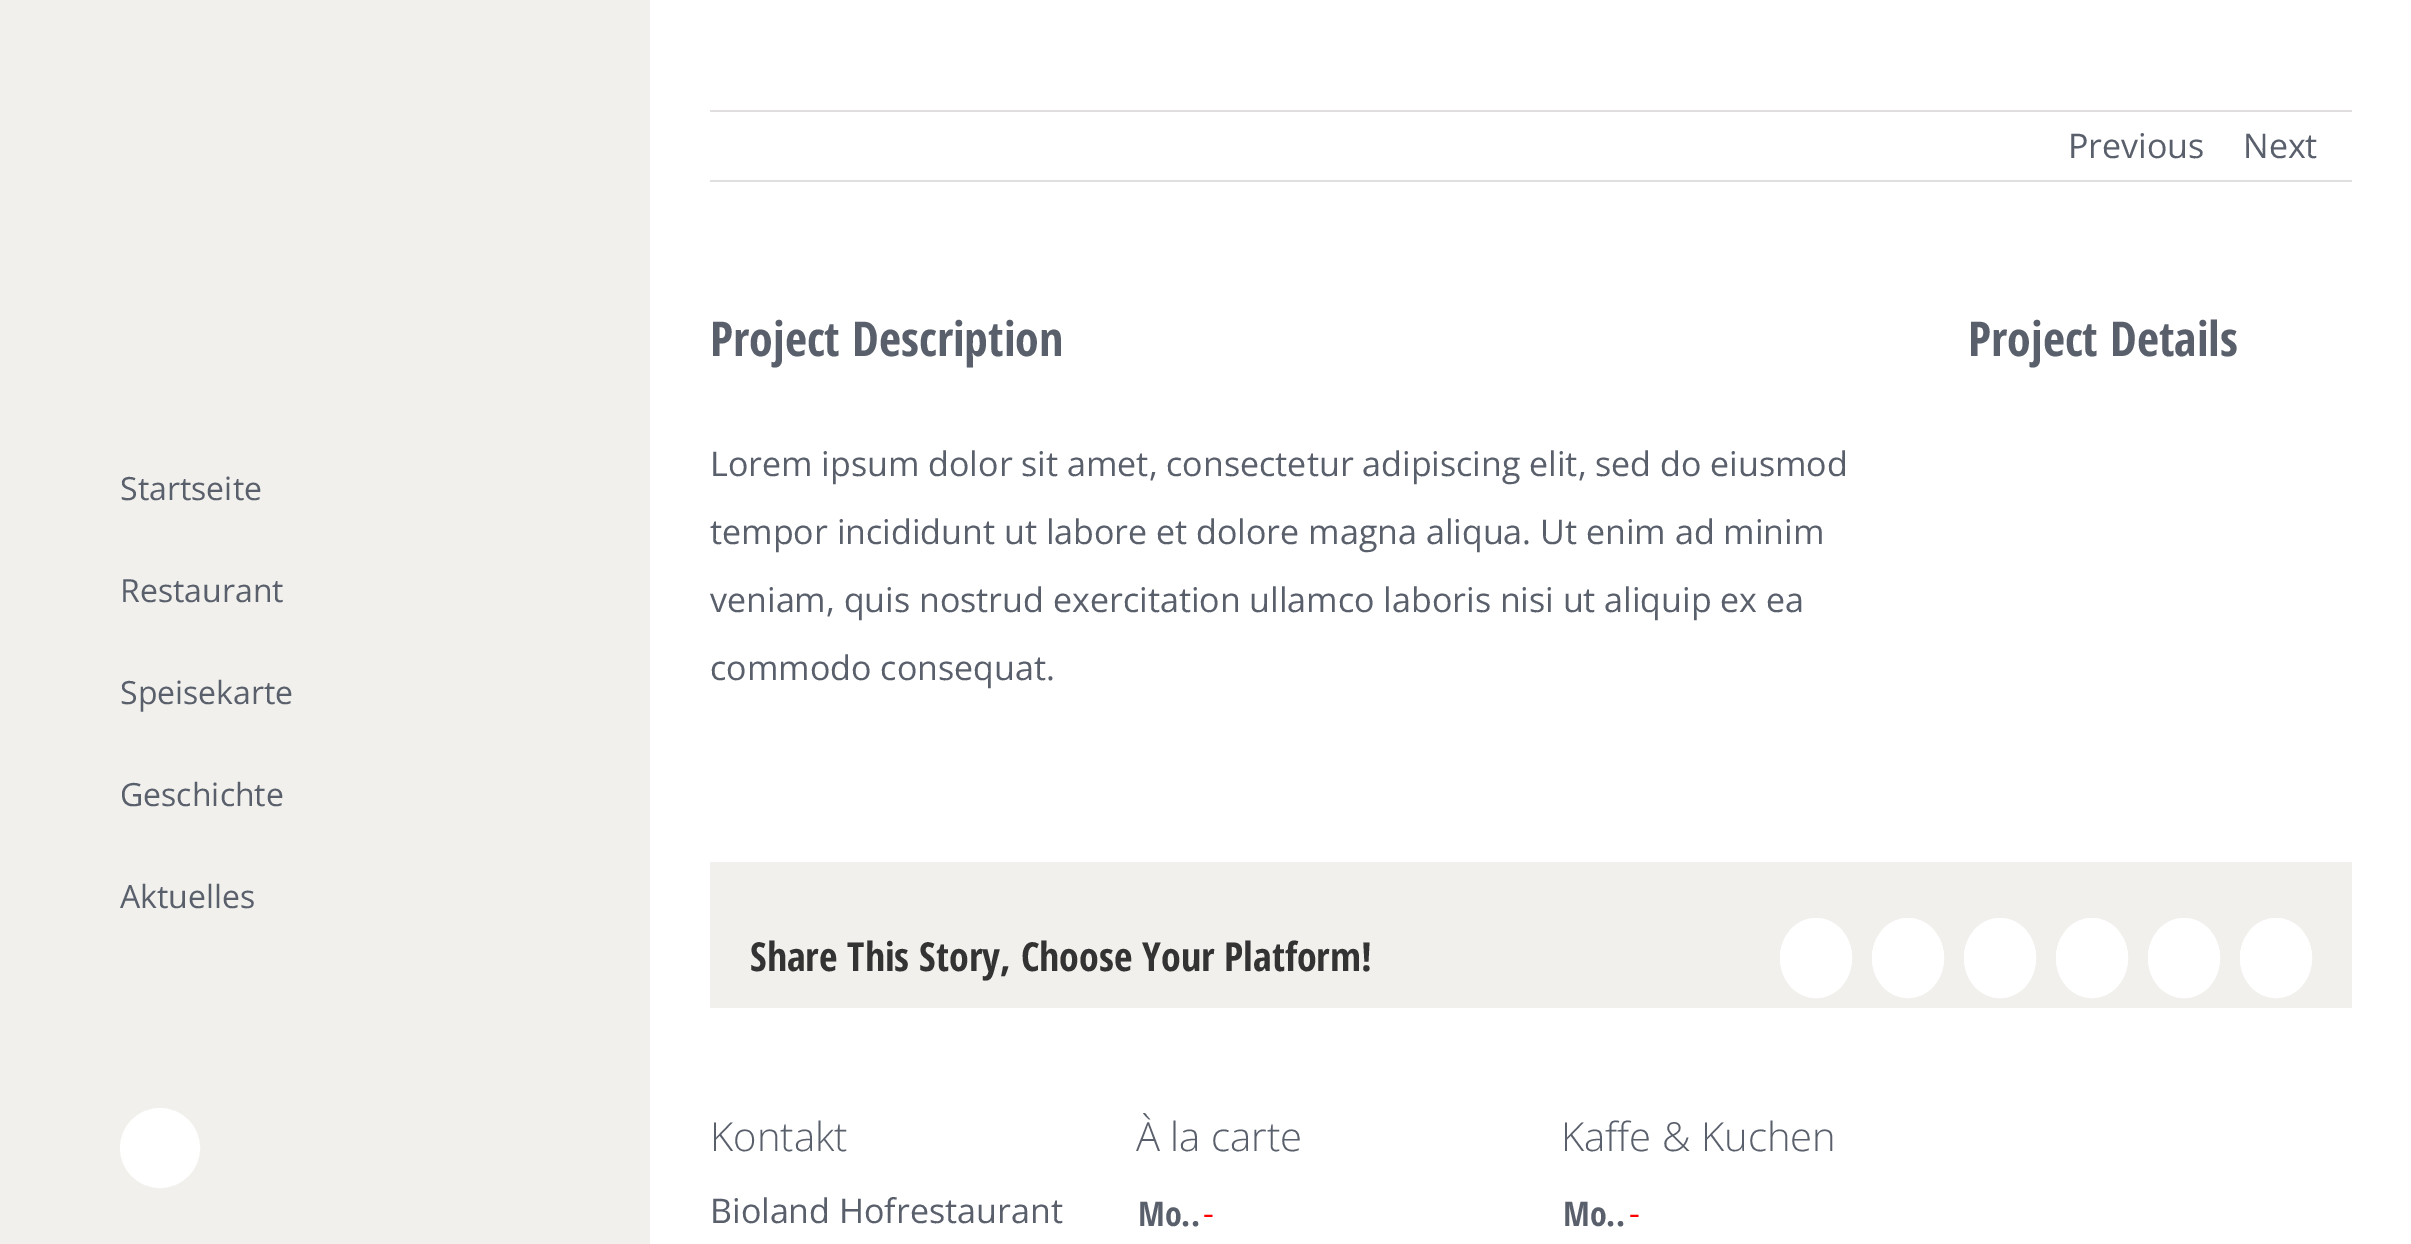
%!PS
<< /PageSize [2411 1244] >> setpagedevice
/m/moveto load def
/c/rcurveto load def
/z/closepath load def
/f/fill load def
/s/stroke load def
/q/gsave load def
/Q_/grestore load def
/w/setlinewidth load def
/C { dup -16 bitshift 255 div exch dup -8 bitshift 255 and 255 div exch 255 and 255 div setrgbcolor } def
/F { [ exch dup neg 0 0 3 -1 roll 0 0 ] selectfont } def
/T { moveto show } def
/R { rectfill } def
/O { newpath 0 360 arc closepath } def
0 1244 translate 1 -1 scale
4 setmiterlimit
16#FFFFFF C
0 0 2411 1244 R
16#F1F0EC C
0 0 650 1244 R
/OpenSans-Regular 32 F
16#595F6B C
(Startseite) 120 500 T
(Restaurant) 120 602 T
(Speisekarte) 120 704 T
(Geschichte) 120 806 T
(Aktuelles) 120 908 T
16#FFFFFF C
160 1148 39 O q f Q_
2 w
s
16#E0DEDE C
710 110 1642 2 R
710 180 1642 2 R
/OpenSans-Regular 34 F
16#595F6B C
(Previous) 2068 158 T
(Next) 2243 158 T
/OpenSansCondensed-Bold 48 F
(Project Description) 710 356 T
/OpenSans-Regular 34 F
(Lorem ipsum dolor sit amet, consectetur adipiscing elit, sed do eiusmod) 710 476 T
(tempor incididunt ut labore et dolore magna aliqua. Ut enim ad minim) 710 544 T
(veniam, quis nostrud exercitation ullamco laboris nisi ut aliquip ex ea) 710 612 T
(commodo consequat.) 710 680 T
/OpenSansCondensed-Bold 48 F
(Project Details) 1968 356 T
16#F1F0EC C
710 862 1642 146 R
/OpenSansCondensed-Bold 40 F
16#333333 C
(Share This Story, Choose Your Platform!) 750 971 T
16#FFFFFF C
1816 918 m 20 0 36 18 36 40 c 0 22 -16 40 -36 40 c -20 0 -36 -18 -36 -40 c 0 -22 16 -40 36 -40 c z f
1816 919 m 19.5 0 35 17.5 35 39 c 0 21.5 -15.5 39 -35 39 c -19.5 0 -35 -17.5 -35 -39 c 0 -21.5 15.5 -39 35 -39 c z s
1908 918 m 20 0 36 18 36 40 c 0 22 -16 40 -36 40 c -20 0 -36 -18 -36 -40 c 0 -22 16 -40 36 -40 c z f
1908 919 m 19.5 0 35 17.5 35 39 c 0 21.5 -15.5 39 -35 39 c -19.5 0 -35 -17.5 -35 -39 c 0 -21.5 15.5 -39 35 -39 c z s
2000 918 m 20 0 36 18 36 40 c 0 22 -16 40 -36 40 c -20 0 -36 -18 -36 -40 c 0 -22 16 -40 36 -40 c z f
2000 919 m 19.5 0 35 17.5 35 39 c 0 21.5 -15.5 39 -35 39 c -19.5 0 -35 -17.5 -35 -39 c 0 -21.5 15.5 -39 35 -39 c z s
2092 918 m 20 0 36 18 36 40 c 0 22 -16 40 -36 40 c -20 0 -36 -18 -36 -40 c 0 -22 16 -40 36 -40 c z f
2092 919 m 19.5 0 35 17.5 35 39 c 0 21.5 -15.5 39 -35 39 c -19.5 0 -35 -17.5 -35 -39 c 0 -21.5 15.5 -39 35 -39 c z s
2184 918 m 20 0 36 18 36 40 c 0 22 -16 40 -36 40 c -20 0 -36 -18 -36 -40 c 0 -22 16 -40 36 -40 c z f
2184 919 m 19.5 0 35 17.5 35 39 c 0 21.5 -15.5 39 -35 39 c -19.5 0 -35 -17.5 -35 -39 c 0 -21.5 15.5 -39 35 -39 c z s
2276 918 m 20 0 36 18 36 40 c 0 22 -16 40 -36 40 c -20 0 -36 -18 -36 -40 c 0 -22 16 -40 36 -40 c z f
2276 919 m 19.5 0 35 17.5 35 39 c 0 21.5 -15.5 39 -35 39 c -19.5 0 -35 -17.5 -35 -39 c 0 -21.5 15.5 -39 35 -39 c z s
/OpenSans-Light 40 F
16#595F6B C
(Kontakt) 710 1151 T
/OpenSans-Regular 34 F
(Bioland Hofrestaurant) 710 1223 T
/OpenSans-Light 40 F
(À la carte) 1136 1151 T
/OpenSansCondensed-Bold 34 F
(Mo..) 1138 1226 T
/OpenSans-Regular 34 F
16#FF0000 C
(-) 1203 1225 T
/OpenSans-Light 40 F
16#595F6B C
(Kaffe & Kuchen) 1561 1151 T
/OpenSansCondensed-Bold 34 F
(Mo..) 1563 1226 T
/OpenSans-Regular 34 F
16#FF0000 C
(-) 1629 1225 T
showpage
